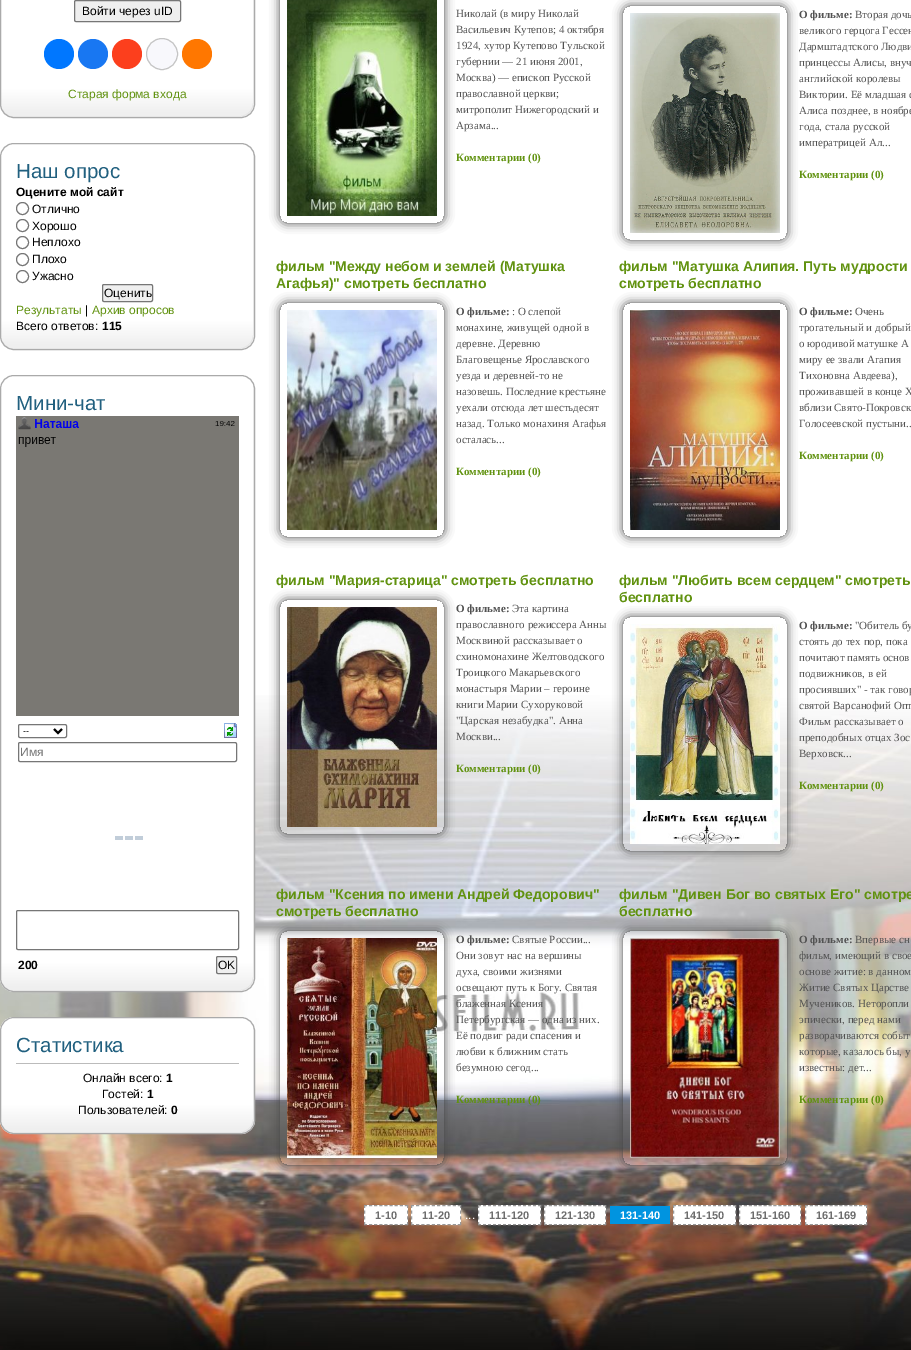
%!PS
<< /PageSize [911 1350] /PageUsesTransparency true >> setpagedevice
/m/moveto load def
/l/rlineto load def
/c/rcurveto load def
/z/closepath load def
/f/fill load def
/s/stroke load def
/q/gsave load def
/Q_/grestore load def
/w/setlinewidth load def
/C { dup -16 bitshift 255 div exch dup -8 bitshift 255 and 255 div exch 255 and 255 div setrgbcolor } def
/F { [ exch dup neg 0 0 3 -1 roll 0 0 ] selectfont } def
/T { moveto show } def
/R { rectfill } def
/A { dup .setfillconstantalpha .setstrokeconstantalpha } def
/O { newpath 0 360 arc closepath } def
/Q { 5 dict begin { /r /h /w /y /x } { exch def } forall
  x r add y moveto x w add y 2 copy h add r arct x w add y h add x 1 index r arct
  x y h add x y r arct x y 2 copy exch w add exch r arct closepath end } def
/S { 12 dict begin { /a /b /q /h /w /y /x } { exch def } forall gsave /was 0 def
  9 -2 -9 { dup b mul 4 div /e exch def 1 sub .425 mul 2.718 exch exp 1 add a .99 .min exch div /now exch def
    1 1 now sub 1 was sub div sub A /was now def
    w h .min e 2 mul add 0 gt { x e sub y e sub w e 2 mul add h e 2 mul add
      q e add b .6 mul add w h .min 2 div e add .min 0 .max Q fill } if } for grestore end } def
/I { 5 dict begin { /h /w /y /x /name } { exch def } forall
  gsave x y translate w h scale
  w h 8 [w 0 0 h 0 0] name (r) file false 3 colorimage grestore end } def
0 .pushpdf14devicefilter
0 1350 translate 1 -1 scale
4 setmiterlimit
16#FFFFFF C
0 0 911 1350 R
(1.rgb) 0 695 911 655 I
(2.rgb) 0 0 254 117 I
16#AAAAAA C
.5 -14.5 254 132 13.5 Q s
16#EFEFEF C
74.5 .5 106 21 1.5 Q q f Q_
16#767676 C
s
/LiberationSans-Regular 12 F
16#000000 C
(Войти через uID) 82 15 T
16#0077FF C
59 54 15 O f
16#1877F2 C
93 54 15 O f
16#FC3F1D C
127 54 15 O f
16#F8F8FC C
162 54 15.5 O q f Q_
16#C4C4C4 C
s
16#FF7700 C
197 54 15 O f
16#619210 C
(Старая форма входа) 68 98 T
(3.rgb) 0 150 254 199 I
16#AAAAAA C
.5 143.5 254 206 13.5 Q s
/LiberationSans-Regular 20.5 F
16#21607F C
(Наш опрос) 16 178 T
/LiberationSans-Bold 12 F
16#000000 C
(Оцените мой сайт) 16 196 T
16#767676 C
22.5 208.5 6 O s
/LiberationSans-Regular 12 F
16#000000 C
(Отлично) 32 213 T
16#767676 C
22.5 225.5 6 O s
16#000000 C
(Хорошо) 32 230 T
16#767676 C
22.5 242.5 6 O s
16#000000 C
(Неплохо) 32 246 T
16#767676 C
22.5 259.5 6 O s
16#000000 C
(Плохо) 32 263 T
16#767676 C
22.5 276.5 6 O s
16#000000 C
(Ужасно) 32 280 T
16#EFEFEF C
102.5 284.5 50 17 1.5 Q q f Q_
16#767676 C
s
16#000000 C
(Оценить) 104 297 T
16#619210 C
(Результаты) 16 314 T
16#000000 C
(|) 85 314 T
16#619210 C
(Архив опросов) 92 314 T
16#000000 C
(Всего ответов:) 16 330 T
/LiberationSans-Bold 12 F
(115) 102 330 T
16#FFFFFF C
0 375 255 617 14 Q f
(4.rgb) 0 382 254 609 I
16#AAAAAA C
.5 375.5 254 616 13.5 Q s
/LiberationSans-Regular 20.5 F
16#21607F C
(Мини-чат) 16 410 T
(5.rgb) 16 416 223 300 I
16#767676 C
18.5 724.5 48 13 1.5 Q s
16#000000 C
2 w
54 729 m 4 4 l 4 -4 l s
/LiberationSans-Regular 9 F
(--) 23 734 T
(6.rgb) 224 723 13 15 I
16#767676 C
1 w
18.5 742.5 218 19 1.5 Q s
/LiberationSans-Regular 12 F
16#757575 C
(Имя) 20 756 T
(7.rgb) 115 836 28 4 I
16#767676 C
16.5 910.5 222 39 1.5 Q s
/LiberationSans-Bold 12 F
16#000000 C
(200) 18 969 T
16#EFEFEF C
216.5 956.5 20 17 1.5 Q q f Q_
16#767676 C
s
/LiberationSans-Regular 12 F
16#000000 C
(OK) 218 969 T
16#FFFFFF C
0 1017 255 117 14 Q f
(8.rgb) 0 1017 254 116 I
16#AAAAAA C
.5 1017.5 254 116 13.5 Q s
/LiberationSans-Regular 20.5 F
16#21607F C
(Статистика) 16 1052 T
16#BBBBBB C
16 1063 223 1 R
/LiberationSans-Regular 12 F
16#000000 C
(Онлайн всего:) 83 1082 T
/LiberationSans-Bold 12 F
(1) 166 1082 T
/LiberationSans-Regular 12 F
(Гостей:) 102 1098 T
/LiberationSans-Bold 12 F
(1) 147 1098 T
/LiberationSans-Regular 12 F
(Пользователей:) 78 1114 T
/LiberationSans-Bold 12 F
(0) 171 1114 T
q
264 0 m 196 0 l 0 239 l -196 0 l z 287 -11 m 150 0 l 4 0 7 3 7 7 c 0 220 l 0 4 -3 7 -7 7 c -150 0 l -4 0 -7 -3 -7 -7 c 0 -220 l 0 -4 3 -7 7 -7 c z eoclip newpath
16#444444 C
280 -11 164 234 7 5 1 S
Q_
(9.rgb) 287 0 150 216 I
/LiberationSerif-Regular 11 F
16#525252 C
(Николай \(в миру Николай) 456 17 T
(Васильевич Кутепов; 4 октября) 456 33 T
(1924, хутор Кутепово Тульской) 456 49 T
(губернии — 21 июня 2001,) 456 65 T
(Москва\) — епископ Русской) 456 81 T
(православной церкви;) 456 97 T
(митрополит Нижегородский и) 456 113 T
(Арзама...) 456 129 T
/LiberationSerif-Bold 11 F
16#619210 C
(Комментарии \(0\)) 456 161 T
q
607 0 m 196 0 l 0 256 l -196 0 l z 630 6 m 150 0 l 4 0 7 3 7 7 c 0 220 l 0 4 -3 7 -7 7 c -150 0 l -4 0 -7 -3 -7 -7 c 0 -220 l 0 -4 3 -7 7 -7 c z eoclip newpath
16#444444 C
623 6 164 234 7 5 1 S
Q_
(10.rgb) 630 13 150 220 I
16#525252 C
(О фильме:) 799 18 T
/LiberationSerif-Regular 11 F
(Вторая дочь) 855 18 T
(великого герцога Гессен) 799 34 T
(Дармштадтского Людви) 799 50 T
(принцессы Алисы, внуч) 799 66 T
(английской королевы) 799 82 T
(Виктории. Её младшая с) 799 98 T
(Алиса позднее, в ноябре) 799 114 T
(года, стала русской) 799 130 T
(императрицей Ал...) 799 146 T
/LiberationSerif-Bold 11 F
16#619210 C
(Комментарии \(0\)) 799 178 T
/LiberationSans-Bold 14 F
(фильм "Между небом и землей \(Матушка) 276 271 T
q
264 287 m 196 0 l 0 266 l -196 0 l z 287 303 m 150 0 l 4 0 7 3 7 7 c 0 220 l 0 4 -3 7 -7 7 c -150 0 l -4 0 -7 -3 -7 -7 c 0 -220 l 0 -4 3 -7 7 -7 c z eoclip newpath
16#444444 C
280 303 164 234 7 5 1 S
Q_
(Агафья\)" смотреть бесплатно) 276 288 T
(11.rgb) 287 310 150 220 I
/LiberationSerif-Bold 11 F
16#525252 C
(О фильме:) 456 315 T
/LiberationSerif-Regular 11 F
(: О слепой) 512 315 T
(монахине, живущей одной в) 456 331 T
(деревне. Деревню) 456 347 T
(Благовещенье Ярославского) 456 363 T
(уезда и деревней-то не) 456 379 T
(назовешь. Последние крестьяне) 456 395 T
(уехали отсюда лет шестьдесят) 456 411 T
(назад. Только монахиня Агафья) 456 427 T
(осталась...) 456 443 T
/LiberationSerif-Bold 11 F
16#619210 C
(Комментарии \(0\)) 456 475 T
/LiberationSans-Bold 14 F
(фильм "Матушка Алипия. Путь мудрости) 619 271 T
q
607 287 m 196 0 l 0 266 l -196 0 l z 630 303 m 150 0 l 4 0 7 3 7 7 c 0 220 l 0 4 -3 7 -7 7 c -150 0 l -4 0 -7 -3 -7 -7 c 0 -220 l 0 -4 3 -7 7 -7 c z eoclip newpath
16#444444 C
623 303 164 234 7 5 1 S
Q_
(смотреть бесплатно) 619 288 T
(12.rgb) 630 310 150 220 I
/LiberationSerif-Bold 11 F
16#525252 C
(О фильме:) 799 315 T
/LiberationSerif-Regular 11 F
(Очень) 855 315 T
(трогательный и добрый) 799 331 T
(о юродивой матушке А) 799 347 T
(миру ее звали Агапия) 799 363 T
(Тихоновна Авдеева\),) 799 379 T
(проживавшей в конце X) 799 395 T
(вблизи Свято-Покровск) 799 411 T
(Голосеевской пустыни..) 799 427 T
/LiberationSerif-Bold 11 F
16#619210 C
(Комментарии \(0\)) 799 459 T
q
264 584 m 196 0 l 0 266 l -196 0 l z 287 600 m 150 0 l 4 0 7 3 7 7 c 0 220 l 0 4 -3 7 -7 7 c -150 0 l -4 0 -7 -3 -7 -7 c 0 -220 l 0 -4 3 -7 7 -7 c z eoclip newpath
16#444444 C
280 600 164 234 7 5 1 S
Q_
/LiberationSans-Bold 14 F
(фильм "Мария-старица" смотреть бесплатно) 276 585 T
(13.rgb) 287 607 150 220 I
/LiberationSerif-Bold 11 F
16#525252 C
(О фильме:) 456 612 T
/LiberationSerif-Regular 11 F
(Эта картина) 512 612 T
(православного режиссера Анны) 456 628 T
(Москвиной рассказывает о) 456 644 T
(схиномонахине Желтоводского) 456 660 T
(Троицкого Макарьевского) 456 676 T
(монастыря Марии – героине) 456 692 T
(книги Марии Сухоруковой) 456 708 T
("Царская незабудка". Анна) 456 724 T
(Москви...) 456 740 T
/LiberationSerif-Bold 11 F
16#619210 C
(Комментарии \(0\)) 456 772 T
/LiberationSans-Bold 14 F
(фильм "Любить всем сердцем" смотреть) 619 585 T
q
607 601 m 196 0 l 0 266 l -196 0 l z 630 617 m 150 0 l 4 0 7 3 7 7 c 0 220 l 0 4 -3 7 -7 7 c -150 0 l -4 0 -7 -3 -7 -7 c 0 -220 l 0 -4 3 -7 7 -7 c z eoclip newpath
16#444444 C
623 617 164 234 7 5 1 S
Q_
(бесплатно) 619 602 T
(14.rgb) 630 624 150 220 I
/LiberationSerif-Bold 11 F
16#525252 C
(О фильме:) 799 629 T
/LiberationSerif-Regular 11 F
("Обитель бу) 855 629 T
(стоять до тех пор, пока) 799 645 T
(почитают память основ) 799 661 T
(подвижников, в ей) 799 677 T
(просиявших" - так говор) 799 693 T
(святой Варсанофий Опт) 799 709 T
(Фильм рассказывает о) 799 725 T
(преподобных отцах Зос) 799 741 T
(Верховск...) 799 757 T
/LiberationSerif-Bold 11 F
16#619210 C
(Комментарии \(0\)) 799 789 T
/LiberationSans-Bold 14 F
(фильм "Ксения по имени Андрей Федорович") 276 899 T
q
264 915 m 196 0 l 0 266 l -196 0 l z 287 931 m 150 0 l 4 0 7 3 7 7 c 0 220 l 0 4 -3 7 -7 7 c -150 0 l -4 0 -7 -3 -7 -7 c 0 -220 l 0 -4 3 -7 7 -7 c z eoclip newpath
16#444444 C
280 931 164 234 7 5 1 S
Q_
(смотреть бесплатно) 276 916 T
(15.rgb) 287 938 150 220 I
/LiberationSerif-Bold 11 F
16#525252 C
(О фильме:) 456 943 T
/LiberationSerif-Regular 11 F
(Святые России...) 512 943 T
(Они зовут нас на вершины) 456 959 T
(духа, своими жизнями) 456 975 T
(освещают путь к Богу. Святая) 456 991 T
(блаженная Ксения) 456 1007 T
(Петербургская — одна из них.) 456 1023 T
(Её подвиг ради спасения и) 456 1039 T
(любви к ближним стать) 456 1055 T
(безумною сегод...) 456 1071 T
/LiberationSerif-Bold 11 F
16#619210 C
(Комментарии \(0\)) 456 1103 T
/LiberationSans-Bold 14 F
(фильм "Дивен Бог во святых Его" смотре) 619 899 T
q
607 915 m 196 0 l 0 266 l -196 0 l z 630 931 m 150 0 l 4 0 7 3 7 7 c 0 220 l 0 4 -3 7 -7 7 c -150 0 l -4 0 -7 -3 -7 -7 c 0 -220 l 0 -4 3 -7 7 -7 c z eoclip newpath
16#444444 C
623 931 164 234 7 5 1 S
Q_
(бесплатно) 619 916 T
(16.rgb) 630 938 150 220 I
/LiberationSerif-Bold 11 F
16#525252 C
(О фильме:) 799 943 T
/LiberationSerif-Regular 11 F
(Впервые сн) 855 943 T
(фильм, имеющий в свое) 799 959 T
(основе житие: в данном) 799 975 T
(Житие Святых Царстве) 799 991 T
(Мучеников. Неторопли) 799 1007 T
(эпически, перед нами) 799 1023 T
(разворачиваются событ) 799 1039 T
(которые, казалось бы, у) 799 1055 T
(известны: дет...) 799 1071 T
/LiberationSerif-Bold 11 F
16#619210 C
(Комментарии \(0\)) 799 1103 T
16#FFFFFF C
364 1205 44 20 R
/LiberationSans-Bold 11 F
16#6D6D6D C
(1-10) 375 1219 T
16#999999 C
[3 2.12] 0 setdash
364 1205.5 m 44 0 l s
[3 2.67] 0 setdash
407.5 1205 m 0 20 l s
[3 2.12] 0 setdash
364 1224.5 m 44 0 l s
[3 2.67] 0 setdash
364.5 1205 m 0 20 l s
16#FFFFFF C
411 1205 50 20 R
16#6D6D6D C
(11-20) 422 1219 T
16#999999 C
[3 2.22] 0 setdash
411 1205.5 m 50 0 l s
[3 2.67] 0 setdash
460.5 1205 m 0 20 l s
[3 2.22] 0 setdash
411 1224.5 m 50 0 l s
[3 2.67] 0 setdash
411.5 1205 m 0 20 l s
/LiberationSans-Regular 12 F
16#FFFFFF C
(...) 465 1219 T
478 1205 63 20 R
16#999999 C
[3 2] 0 setdash
478 1205.5 m 63 0 l s
[3 2.67] 0 setdash
540.5 1205 m 0 20 l s
[3 2] 0 setdash
478 1224.5 m 63 0 l s
[3 2.67] 0 setdash
478.5 1205 m 0 20 l s
/LiberationSans-Bold 11 F
16#6D6D6D C
(111-120) 489 1219 T
16#FFFFFF C
544 1205 62 20 R
16#6D6D6D C
(121-130) 555 1219 T
16#999999 C
[3 1.92] 0 setdash
544 1205.5 m 62 0 l s
[3 2.67] 0 setdash
605.5 1205 m 0 20 l s
[3 1.92] 0 setdash
544 1224.5 m 62 0 l s
[3 2.67] 0 setdash
544.5 1205 m 0 20 l s
16#0094E0 C
610 1206 60 18 R
16#FFFFFF C
(131-140) 620 1219 T
673 1205 63 20 R
16#6D6D6D C
(141-150) 684 1219 T
16#999999 C
[3 2] 0 setdash
673 1205.5 m 63 0 l s
[3 2.67] 0 setdash
735.5 1205 m 0 20 l s
[3 2] 0 setdash
673 1224.5 m 63 0 l s
[3 2.67] 0 setdash
673.5 1205 m 0 20 l s
16#FFFFFF C
739 1205 62 20 R
16#6D6D6D C
(151-160) 750 1219 T
16#999999 C
[3 1.92] 0 setdash
739 1205.5 m 62 0 l s
[3 2.67] 0 setdash
800.5 1205 m 0 20 l s
[3 1.92] 0 setdash
739 1224.5 m 62 0 l s
[3 2.67] 0 setdash
739.5 1205 m 0 20 l s
16#FFFFFF C
805 1205 62 20 R
16#6D6D6D C
(161-169) 816 1219 T
16#999999 C
[3 1.92] 0 setdash
805 1205.5 m 62 0 l s
[3 2.67] 0 setdash
866.5 1205 m 0 20 l s
[3 1.92] 0 setdash
805 1224.5 m 62 0 l s
[3 2.67] 0 setdash
805.5 1205 m 0 20 l s
.poppdf14devicefilter showpage
